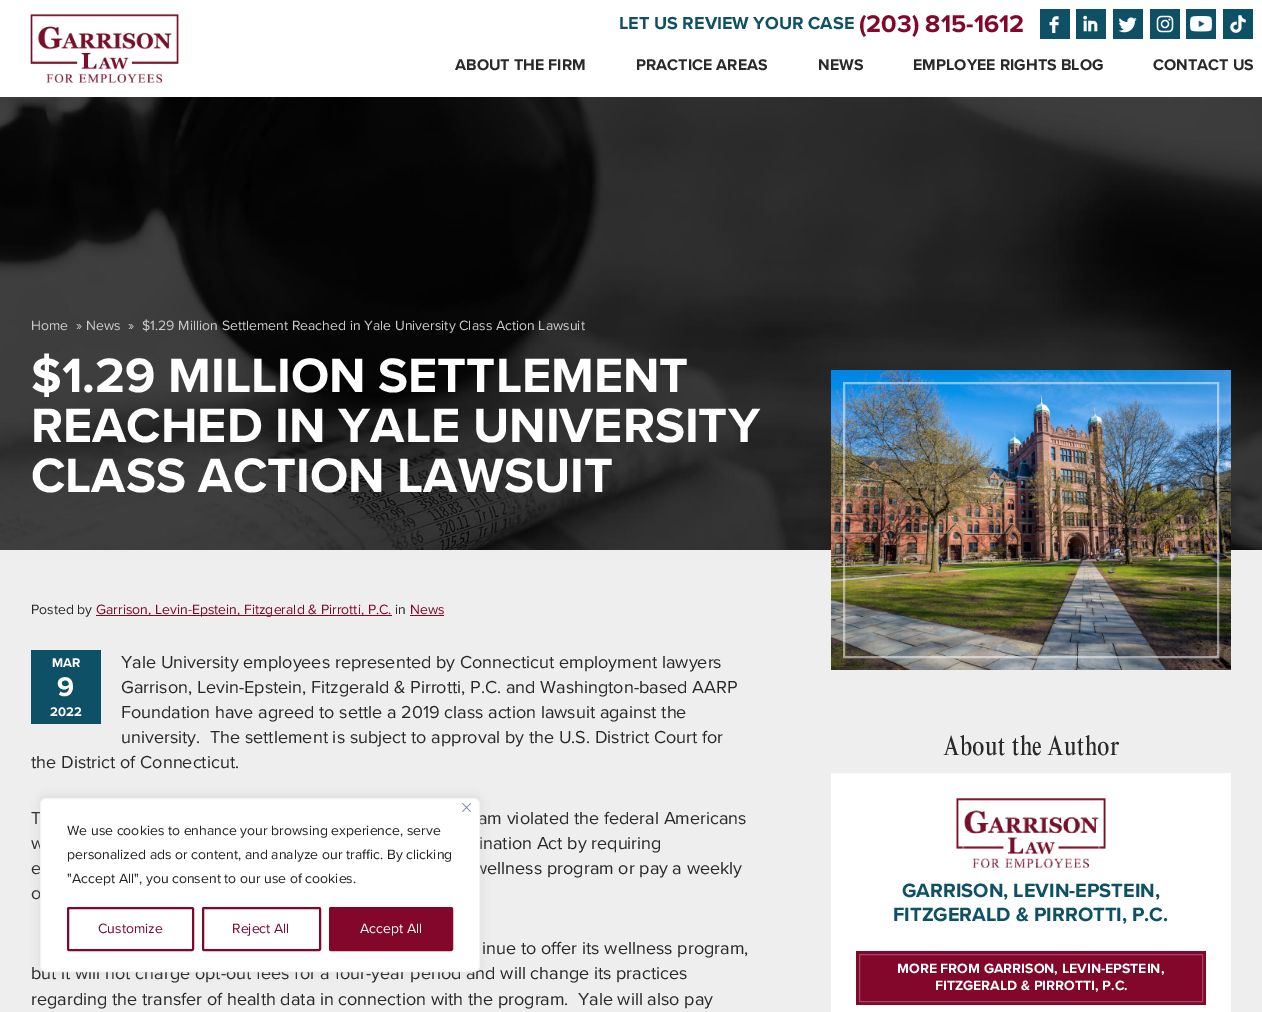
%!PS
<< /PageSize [1262 1012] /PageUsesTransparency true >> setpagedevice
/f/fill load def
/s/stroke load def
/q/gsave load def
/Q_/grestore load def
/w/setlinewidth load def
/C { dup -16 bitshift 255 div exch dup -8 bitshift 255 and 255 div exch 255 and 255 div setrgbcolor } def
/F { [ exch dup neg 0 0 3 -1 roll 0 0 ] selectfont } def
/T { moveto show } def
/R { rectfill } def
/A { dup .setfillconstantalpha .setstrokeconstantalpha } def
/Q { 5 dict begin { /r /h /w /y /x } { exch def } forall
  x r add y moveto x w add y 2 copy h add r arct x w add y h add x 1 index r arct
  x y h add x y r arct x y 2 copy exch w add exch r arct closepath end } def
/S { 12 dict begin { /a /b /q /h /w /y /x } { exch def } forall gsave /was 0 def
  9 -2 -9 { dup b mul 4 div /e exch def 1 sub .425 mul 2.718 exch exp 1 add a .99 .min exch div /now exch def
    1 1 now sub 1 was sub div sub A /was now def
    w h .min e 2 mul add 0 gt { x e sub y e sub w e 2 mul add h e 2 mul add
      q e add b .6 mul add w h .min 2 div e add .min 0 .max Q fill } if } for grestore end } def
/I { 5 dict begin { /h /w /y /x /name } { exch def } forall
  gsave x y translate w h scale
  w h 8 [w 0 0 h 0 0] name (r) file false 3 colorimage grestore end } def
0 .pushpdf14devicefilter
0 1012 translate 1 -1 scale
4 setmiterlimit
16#EEEEEE C
0 0 1262 1012 R
16#FFFFFF C
0 0 1262 97 R
(1.rgb) 30 14 149 69 I
/ProximaNova-Bold 18 F
16#0E5166 C
(LET US REVIEW YOUR CASE) 619 29 T
/ProximaNova-Bold 25 F
16#83072B C
(\(203\) 815-1612) 859 32 T
16#0E5166 C
1040 9 30 30 R
(2.rgb) 1049 16 10 18 I
1076 9 30 30 R
(3.rgb) 1083 15 15 17 I
1113 9 30 30 R
(4.rgb) 1118 17 19 16 I
1150 9 30 30 R
(5.rgb) 1156 15 18 18 I
1186 9 30 30 R
(6.rgb) 1190 16 22 16 I
1223 9 30 30 R
(7.rgb) 1230 15 16 18 I
/ProximaNova-Bold 16 F
16#292929 C
(ABOUT THE FIRM) 455 70 T
(PRACTICE AREAS) 636 70 T
(NEWS) 818 70 T
(EMPLOYEE RIGHTS BLOG) 913 70 T
(CONTACT US) 1153 70 T
(8.rgb) 0 97 1262 453 I
/ProximaNova-Regular 14 F
16#CCCCCC C
(Home) 31 330 T
(» News) 76 330 T
(») 128 330 T
($1.29 Million Settlement Reached in Yale University Class Action Lawsuit) 142 330 T
/ProximaNova-Bold 50 F
16#FFFFFF C
($1.29 MILLION SETTLEMENT) 31 392 T
(REACHED IN YALE UNIVERSITY) 31 442 T
(CLASS ACTION LAWSUIT) 31 492 T
/ProximaNova-Regular 14 F
16#292929 C
(Posted by) 31 614 T
16#83072B C
96 615 296 1 R
(Garrison, Levin-Epstein, Fitzgerald & Pirrotti, P.C.) 96 614 T
16#292929 C
(in) 395 614 T
16#83072B C
(News) 410 614 T
410 615 34 1 R
/ProximaNova-Regular 18 F
16#292929 C
(Yale University employees represented by Connecticut employment lawyers) 121 668 T
(Garrison, Levin-Epstein, Fitzgerald & Pirrotti, P.C. and Washington-based AARP) 121 693 T
(Foundation have agreed to settle a 2019 class action lawsuit against the) 121 718 T
(university.  The settlement is subject to approval by the U.S. District Court for) 121 743 T
(the District of Connecticut.) 31 768 T
16#0E5166 C
31 650 70 74 R
/ProximaNova-Bold 13 F
16#FFFFFF C
(MAR) 52 667 T
/ProximaNova-Bold 28 F
(9) 57 696 T
/ProximaNova-Bold 13 F
(2022) 50 716 T
/ProximaNova-Regular 18 F
16#292929 C
(T) 31 824 T
(am violated the federal Americans) 478 824 T
(w) 31 849 T
(ination Act by requiring) 479 849 T
(e) 31 874 T
(wellness program or pay a weekly) 474 874 T
(o) 31 899 T
(inue to offer its wellness program,) 482 954 T
(but it will not charge opt-out fees for a four-year period and will change its practices) 31 979 T
(regarding the transfer of health data in connection with the program.  Yale will also pay) 31 1005 T
(9.rgb) 831 370 400 300 I
0.5 A
16#FFFFFF C
2 w
844 383 374 274 rectstroke
/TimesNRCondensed-Regular 28 F
1 A
16#292929 C
(About the Author) 943 755 T
16#FFFFFF C
831 773 400 239 R
(10.rgb) 956 798 150 70 I
0.25 A
963 805 136 56 rectstroke
/ProximaNova-Bold 20 F
1 A
16#0E5166 C
(GARRISON, LEVIN-EPSTEIN,) 902 897 T
(FITZGERALD & PIRROTTI, P.C.) 893 921 T
16#83072B C
856 951 350 54 R
16#A24560 C
1 w
859.5 954.5 343 47 rectstroke
/ProximaNova-Bold 14 F
16#FFFFFF C
(MORE FROM GARRISON, LEVIN-EPSTEIN,) 897 973 T
(FITZGERALD & PIRROTTI, P.C.) 935 990 T
16#ACABAB C
40 797 440 174 6 5 .3 S
16#FFFFFF C
40.5 798.5 439 173 5.5 Q q f Q_
16#F4F4F4 C
s
(11.rgb) 462 803 9 9 I
/ProximaNova-Regular 14 F
16#212121 C
(We use cookies to enhance your browsing experience, serve) 67 835 T
(personalized ads or content, and analyze our traffic. By clicking) 67 859 T
("Accept All", you consent to our use of cookies.) 67 883 T
16#83072B C
2 w
68 908 125 42 1 Q s
(Customize) 98 933 T
203 908 117 42 1 Q s
(Reject All) 232 933 T
330 908 122 42 1 Q q f Q_
s
16#FFFFFF C
(Accept All) 360 933 T
.poppdf14devicefilter showpage
